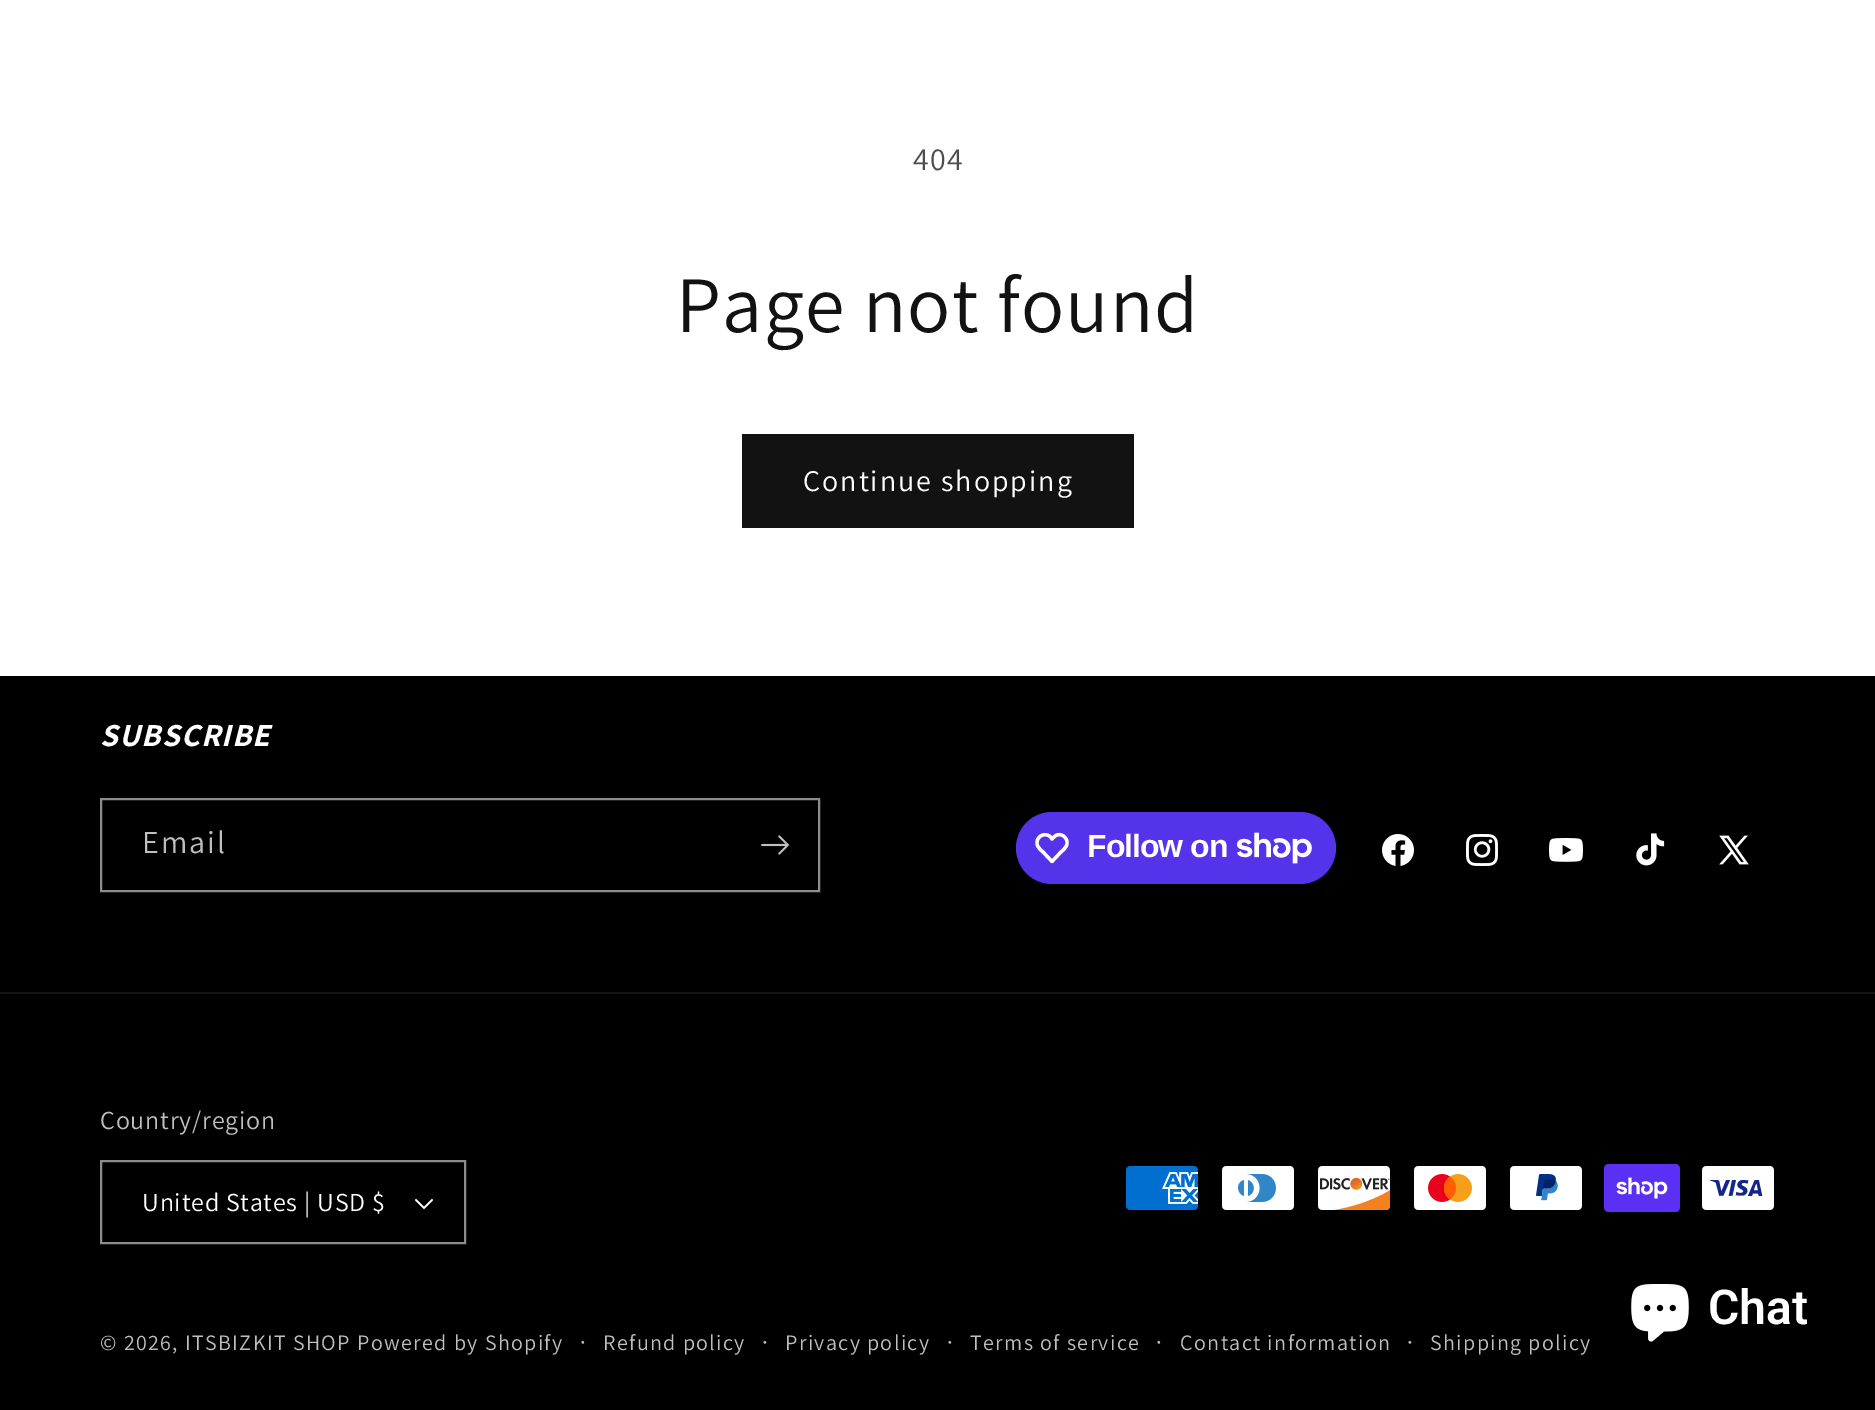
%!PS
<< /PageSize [1875 1410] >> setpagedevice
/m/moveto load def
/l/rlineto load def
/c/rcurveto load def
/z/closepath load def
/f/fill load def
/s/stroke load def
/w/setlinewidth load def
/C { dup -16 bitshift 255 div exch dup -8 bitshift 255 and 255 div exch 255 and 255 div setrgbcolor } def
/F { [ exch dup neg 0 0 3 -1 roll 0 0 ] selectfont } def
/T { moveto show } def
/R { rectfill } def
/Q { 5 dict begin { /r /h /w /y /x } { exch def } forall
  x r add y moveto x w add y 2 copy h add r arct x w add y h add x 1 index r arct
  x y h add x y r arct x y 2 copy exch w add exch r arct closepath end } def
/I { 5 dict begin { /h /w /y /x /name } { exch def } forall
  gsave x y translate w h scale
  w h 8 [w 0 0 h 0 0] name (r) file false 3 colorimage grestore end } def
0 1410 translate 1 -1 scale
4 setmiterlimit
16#FFFFFF C
0 0 1875 1410 R
/Assistant-Regular 32 F
16#4D4D4D C
913 170 m 1.25 0 (404) ashow
/Assistant-Regular 80 F
16#121212 C
676 332 m 1.25 0 (Page not found) ashow
742 434 392 94 R
/Assistant-Regular 30 F
16#FFFFFF C
803 491 m 2 0 (Continue shopping) ashow
16#000000 C
0 676 1875 734 R
/Assistant-BoldItalic 32 F
16#FFFFFF C
100 746 m 1.25 0 (SUBSCRIBE) ashow
16#8C8C8C C
2 w
101 799 718 92 rectstroke
/Assistant-Regular 32 F
16#BFBFBF C
142 853 m 2 0 (Email) ashow
(1.rgb) 761 835 28 20 I
16#5433EB C
1016 812 320 72 36 Q f
16#FFFFFF C
3.3 w
1 setlinejoin
1050.5 837 m 1.5 2 l 1.5 -1.5 3 -3.5 5 -4 c 6 -2 12 4.5 9.5 10.5 c -1 3 -4 5 -6 7 c -8.5 9 l -8.5 -9 l -2 -2 -5 -4 -6 -7 c -3 -8 7 -14.5 13 -8.5 c z s
/LiberationSans-Bold 32 F
1087 857 m -1 0 (Follow on) ashow
(2.rgb) 1237 832 75 32 I
(3.rgb) 1382 834 32 32 I
(4.rgb) 1466 834 32 32 I
(5.rgb) 1549 838 34 24 I
(6.rgb) 1636 833 29 33 I
(7.rgb) 1719 835 30 30 I
16#141414 C
0 992 1875 2 R
/Assistant-Regular 26 F
16#BFBFBF C
100 1129 m .8 0 (Country/region) ashow
(8.rgb) 415 1199 18 10 I
16#8C8C8C C
2 w
0 setlinejoin
101 1161 364 82 rectstroke
16#FFFFFF C
142 1211 m .8 0 (United States | USD $) ashow
(9.rgb) 1126 1166 72 44 I
(10.rgb) 1222 1166 72 44 I
(11.rgb) 1318 1166 73 44 I
(12.rgb) 1414 1166 72 44 I
(13.rgb) 1510 1166 72 44 I
(14.rgb) 1604 1164 76 48 I
(15.rgb) 1702 1166 72 44 I
/Assistant-Regular 22 F
16#BFBFBF C
100 1350 m 1.4 0 (© 2026, ITSBIZKIT SHOP) ashow
357 1350 m 1.4 0 (Powered by Shopify) ashow
/Assistant-Regular 24 F
580 1350 m 1.4 0 (·) ashow
/Assistant-Regular 22 F
603 1350 m 1.4 0 (Refund policy) ashow
/Assistant-Regular 24 F
762 1350 m 1.4 0 (·) ashow
/Assistant-Regular 22 F
785 1350 m 1.4 0 (Privacy policy) ashow
/Assistant-Regular 24 F
947 1350 m 1.4 0 (·) ashow
/Assistant-Regular 22 F
970 1350 m 1.4 0 (Terms of service) ashow
/Assistant-Regular 24 F
1156 1350 m 1.4 0 (·) ashow
/Assistant-Regular 22 F
1180 1350 m 1.4 0 (Contact information) ashow
/Assistant-Regular 24 F
1407 1350 m 1.4 0 (·) ashow
/Assistant-Regular 22 F
1430 1350 m 1.4 0 (Shipping policy) ashow
(16.rgb) 1631 1284 58 58 I
/Roboto-SemiBold 48 F
16#FFFFFF C
(Chat) 1708 1324 T
showpage
